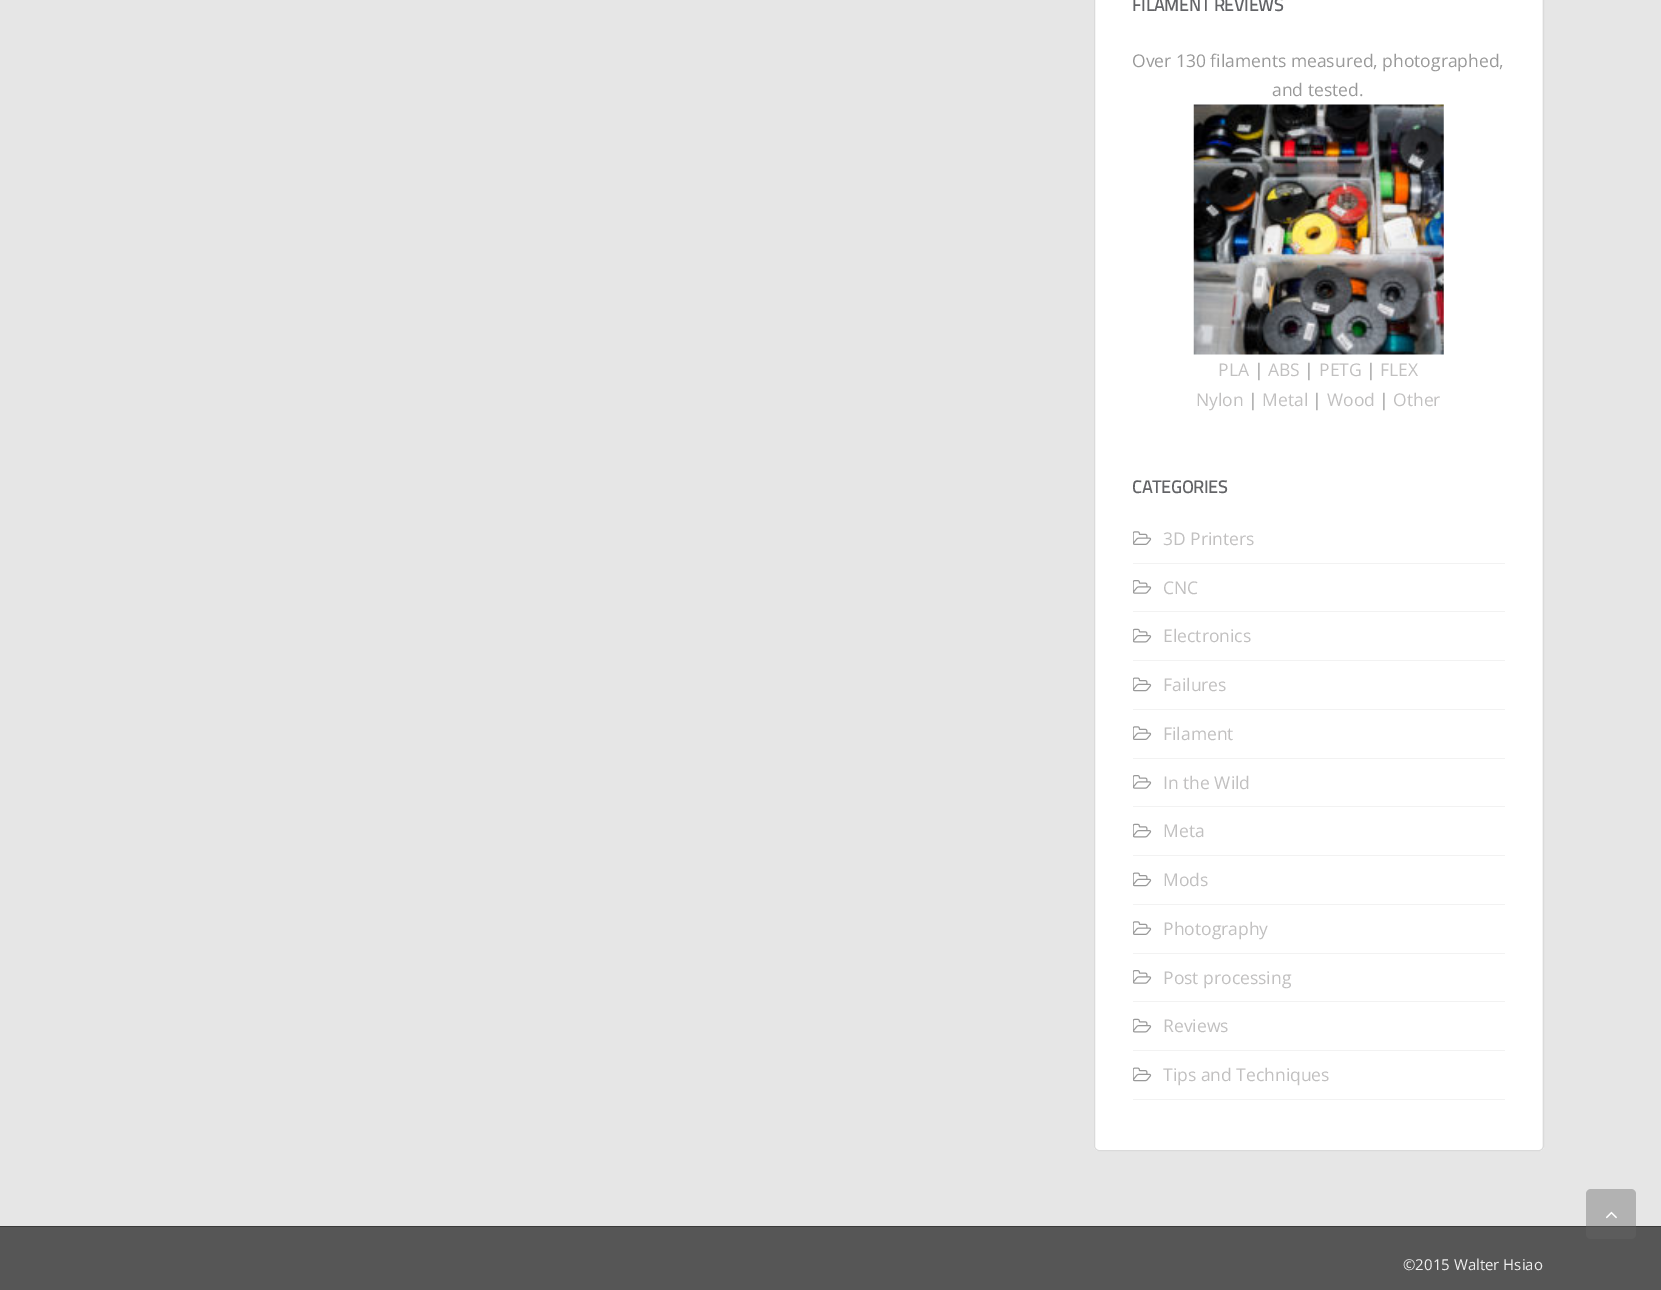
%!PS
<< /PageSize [1661 1290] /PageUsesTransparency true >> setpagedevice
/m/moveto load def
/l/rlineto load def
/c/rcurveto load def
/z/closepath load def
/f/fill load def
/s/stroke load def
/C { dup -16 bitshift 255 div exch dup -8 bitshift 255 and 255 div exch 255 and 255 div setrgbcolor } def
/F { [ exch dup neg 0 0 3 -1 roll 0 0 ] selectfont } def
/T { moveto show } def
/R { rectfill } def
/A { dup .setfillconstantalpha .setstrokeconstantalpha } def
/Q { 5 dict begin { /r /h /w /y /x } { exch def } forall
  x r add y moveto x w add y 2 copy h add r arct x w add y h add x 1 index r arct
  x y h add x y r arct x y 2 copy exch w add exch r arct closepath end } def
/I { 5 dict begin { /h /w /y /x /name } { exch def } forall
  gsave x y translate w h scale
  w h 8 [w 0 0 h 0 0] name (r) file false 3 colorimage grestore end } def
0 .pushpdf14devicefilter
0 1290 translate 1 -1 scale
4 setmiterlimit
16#E6E6E6 C
0 0 1661 1290 R
16#FFFFFF C
1094 -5 450 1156 5 Q f
16#F2F2F2 C
1099 -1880 m 440 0 l 2 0 3 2 3 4 c 0 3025 l 1 -1 1 -2 1 -3 c 0 -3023 l 0 -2 -2 -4 -4 -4 c -440 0 l -2 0 -4 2 -4 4 c 0 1 l 0 -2 2 -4 4 -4 c z f
16#DADADA C
1094.5 -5.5 449 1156 4.5 Q s
/TitilliumWeb-Bold 17.5 F
16#636467 C
(FILAMENT REVIEWS) 1132 11 T
/OpenSans-Regular 17.5 F
16#999999 C
(Over 130 filaments measured, photographed,) 1132 67 T
(and tested.) 1272 96 T
(1.rgb) 1193 104 251 251 I
16#C1C0C0 C
(PLA) 1218 376 T
16#999999 C
(|) 1254 376 T
16#C1C0C0 C
(ABS) 1268 376 T
16#999999 C
(|) 1304 376 T
16#C1C0C0 C
(PETG) 1319 376 T
16#999999 C
(|) 1366 376 T
16#C1C0C0 C
(FLEX) 1380 376 T
(Nylon) 1196 406 T
16#999999 C
(|) 1248 406 T
16#C1C0C0 C
(Metal) 1262 406 T
16#999999 C
(|) 1312 406 T
16#C1C0C0 C
(Wood) 1327 406 T
16#999999 C
(|) 1379 406 T
16#C1C0C0 C
(Other) 1393 406 T
/TitilliumWeb-Bold 17.5 F
16#636467 C
(CATEGORIES) 1132 493 T
16#F2F2F2 C
1133 563 372 1 R
(2.rgb) 1133 531 19 14 I
/OpenSans-Regular 17.5 F
16#C1C0C0 C
(3D Printers) 1163 545 T
16#F2F2F2 C
1133 611 372 1 R
(3.rgb) 1133 580 19 14 I
16#C1C0C0 C
(CNC) 1163 594 T
16#F2F2F2 C
1133 660 372 1 R
(4.rgb) 1133 628 19 15 I
16#C1C0C0 C
(Electronics) 1163 642 T
16#F2F2F2 C
1133 709 372 1 R
(5.rgb) 1133 677 19 15 I
16#C1C0C0 C
(Failures) 1163 691 T
16#F2F2F2 C
1133 758 372 1 R
(2.rgb) 1133 726 19 14 I
16#C1C0C0 C
(Filament) 1163 740 T
16#F2F2F2 C
1133 806 372 1 R
(3.rgb) 1133 775 19 14 I
16#C1C0C0 C
(In the Wild) 1163 789 T
16#F2F2F2 C
1133 855 372 1 R
(4.rgb) 1133 823 19 15 I
16#C1C0C0 C
(Meta) 1163 837 T
16#F2F2F2 C
1133 904 372 1 R
(5.rgb) 1133 872 19 15 I
16#C1C0C0 C
(Mods) 1163 886 T
16#F2F2F2 C
1133 953 372 1 R
(2.rgb) 1133 921 19 14 I
16#C1C0C0 C
(Photography) 1163 935 T
16#F2F2F2 C
1133 1001 372 1 R
(3.rgb) 1133 970 19 14 I
16#C1C0C0 C
(Post processing) 1163 984 T
16#F2F2F2 C
1133 1050 372 1 R
(4.rgb) 1133 1018 19 15 I
16#C1C0C0 C
(Reviews) 1163 1032 T
16#F2F2F2 C
1133 1099 372 1 R
(5.rgb) 1133 1067 19 15 I
16#C1C0C0 C
(Tips and Techniques) 1163 1081 T
16#565656 C
0 1227 1661 63 R
16#3A3A3A C
0 1226 1661 1 R
0.4 A
16#646464 C
1586 1189 50 50 5 Q f
1 A
(6.rgb) 1606 1211 11 8 I
/OpenSans-Regular 15 F
16#EFEFEF C
(©2015 Walter Hsiao) 1403 1270 T
.poppdf14devicefilter showpage
